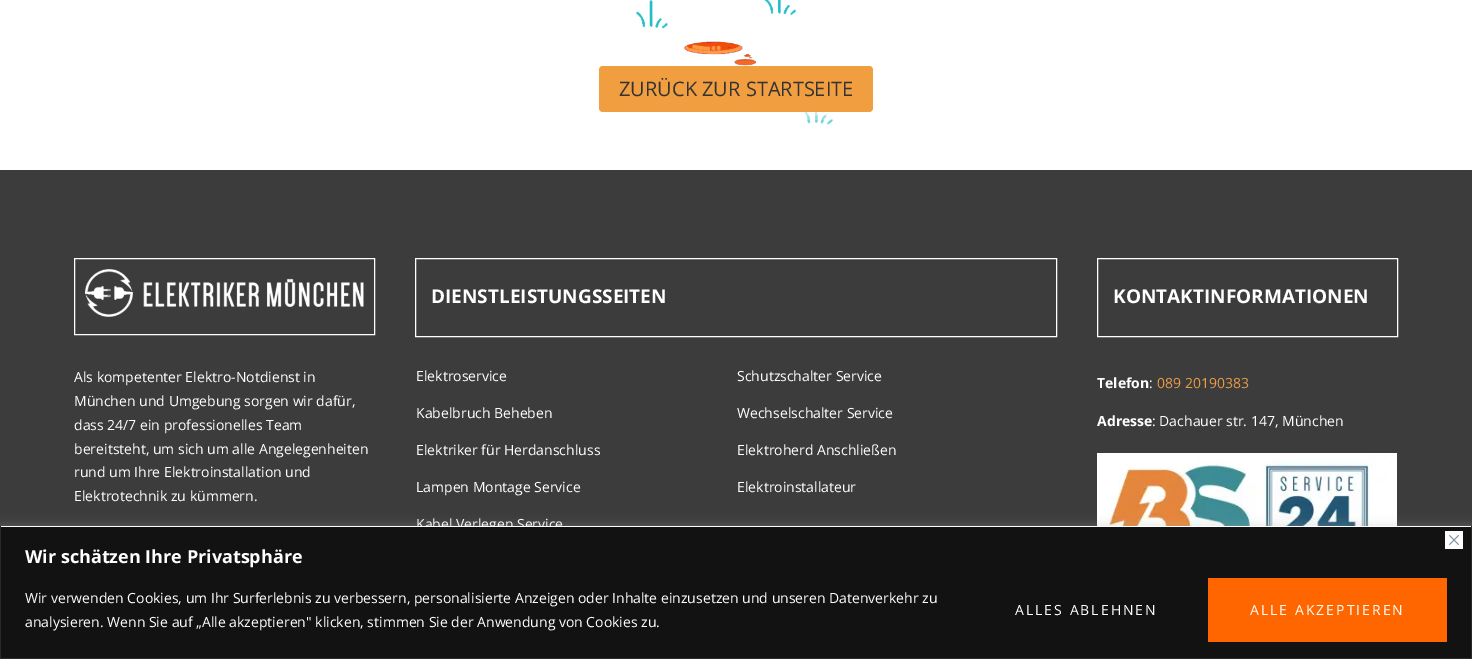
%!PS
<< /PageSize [1472 659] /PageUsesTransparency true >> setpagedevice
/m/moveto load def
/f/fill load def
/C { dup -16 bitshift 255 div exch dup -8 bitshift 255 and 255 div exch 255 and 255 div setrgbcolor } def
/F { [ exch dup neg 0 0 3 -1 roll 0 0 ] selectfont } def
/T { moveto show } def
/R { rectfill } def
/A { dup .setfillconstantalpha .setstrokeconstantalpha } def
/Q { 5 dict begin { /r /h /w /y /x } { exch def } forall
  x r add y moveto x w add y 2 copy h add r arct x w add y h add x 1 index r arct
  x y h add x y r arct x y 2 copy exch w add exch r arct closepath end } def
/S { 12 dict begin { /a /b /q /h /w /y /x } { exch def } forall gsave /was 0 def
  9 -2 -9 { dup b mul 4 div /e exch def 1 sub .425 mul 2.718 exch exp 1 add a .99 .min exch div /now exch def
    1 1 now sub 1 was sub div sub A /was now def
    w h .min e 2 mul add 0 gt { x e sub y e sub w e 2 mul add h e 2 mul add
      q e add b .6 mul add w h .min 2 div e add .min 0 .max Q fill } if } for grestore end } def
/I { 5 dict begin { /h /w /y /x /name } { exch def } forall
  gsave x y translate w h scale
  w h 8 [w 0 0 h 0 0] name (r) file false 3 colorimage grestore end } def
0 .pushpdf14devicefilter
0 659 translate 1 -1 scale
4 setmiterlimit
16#FFFFFF C
0 0 1472 659 R
(1.rgb) 636 0 198 125 I
605 72 274 46 4 9 1 S
16#F09E40 C
599 66 274 46 4 Q f
/OpenSans-Regular 20 F
16#333333 C
(ZURÜCK ZUR STARTSEITE) 619 96 T
16#3C3C3C C
0 170 1472 356 R
16#FFFFFF C
74.5 258.5 300 76 rectstroke
(2.rgb) 85 269 279 48 I
/OpenSans-Regular 14 F
(Als kompetenter Elektro-Notdienst in) 74 382 T
(München und Umgebung sorgen wir dafür,) 74 406 T
(dass 24/7 ein professionelles Team) 74 430 T
(bereitsteht, um sich um alle Angelegenheiten) 74 454 T
(rund um Ihre Elektroinstallation und) 74 477 T
(Elektrotechnik zu kümmern.) 74 501 T
415.5 258.5 641 78 rectstroke
/OpenSans-Bold 19 F
(DIENSTLEISTUNGSSEITEN) 431 303 T
/OpenSans-Regular 14 F
(Elektroservice) 416 381 T
(Schutzschalter Service) 737 381 T
(Kabelbruch Beheben) 416 418 T
(Wechselschalter Service) 737 418 T
(Elektriker für Herdanschluss) 416 455 T
(Elektroherd Anschließen) 737 455 T
(Lampen Montage Service) 416 492 T
(Elektroinstallateur) 737 492 T
(Kabel Verlegen Service) 416 529 T
1097.5 258.5 300 78 rectstroke
/OpenSans-Bold 19 F
(KONTAKTINFORMATIONEN) 1113 303 T
/OpenSans-Bold 14 F
(Telefon) 1097 388 T
/OpenSans-Regular 14 F
(:) 1149 388 T
16#E89D47 C
(089 20190383) 1157 388 T
/OpenSans-Bold 14 F
16#FFFFFF C
(Adresse) 1097 426 T
/OpenSans-Regular 14 F
(: Dachauer str. 147, München) 1152 426 T
(3.rgb) 1097 453 300 73 I
16#ACABAB C
0 525 1472 133 0 5 .3 S
16#121212 C
1 527 1470 131 R
16#FFFFFF C
0 526 1472 1 R
16#2A2A2A C
1471 526 1 133 R
0 658 1472 1 R
0 526 1 133 R
16#FFFFFF C
1445 531 18 18 R
(4.rgb) 1449 535 10 10 I
/OpenSans-Bold 18 F
(Wir schätzen Ihre Privatsphäre) 25 563 T
/OpenSans-Regular 14 F
(Wir verwenden Cookies, um Ihr Surferlebnis zu verbessern, personalisierte Anzeigen oder Inhalte einzusetzen und unseren Datenverkehr zu) 25 603 T
(analysieren. Wenn Sie auf „Alle akzeptieren" klicken, stimmen Sie der Anwendung von Cookies zu.) 25 627 T
1015 615 m 2 0 (ALLES ABLEHNEN) ashow
16#FF6600 C
1208 578 239 64 R
16#FFFFFF C
1250 615 m 2 0 (ALLE AKZEPTIEREN) ashow
.poppdf14devicefilter showpage
